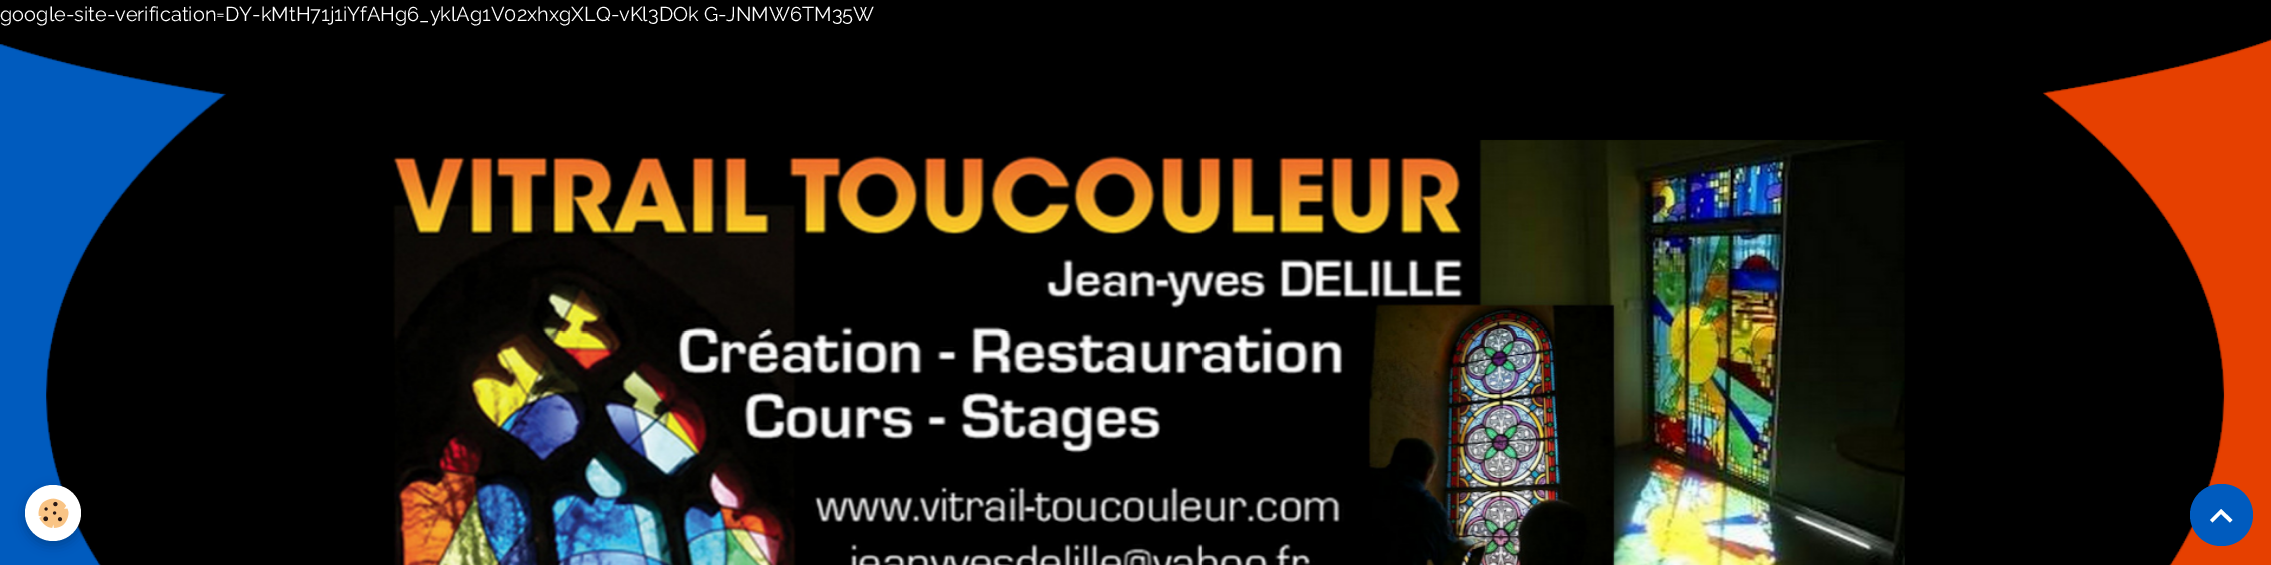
%!PS
<< /PageSize [2271 565] /PageUsesTransparency true >> setpagedevice
/m/moveto load def
/l/rlineto load def
/z/closepath load def
/f/fill load def
/C { dup -16 bitshift 255 div exch dup -8 bitshift 255 and 255 div exch 255 and 255 div setrgbcolor } def
/F { [ exch dup neg 0 0 3 -1 roll 0 0 ] selectfont } def
/T { moveto show } def
/R { rectfill } def
/A { dup .setfillconstantalpha .setstrokeconstantalpha } def
/O { newpath 0 360 arc closepath } def
/Q { 5 dict begin { /r /h /w /y /x } { exch def } forall
  x r add y moveto x w add y 2 copy h add r arct x w add y h add x 1 index r arct
  x y h add x y r arct x y 2 copy exch w add exch r arct closepath end } def
/S { 12 dict begin { /a /b /q /h /w /y /x } { exch def } forall gsave /was 0 def
  9 -2 -9 { dup b mul 4 div /e exch def 1 sub .425 mul 2.718 exch exp 1 add a .99 .min exch div /now exch def
    1 1 now sub 1 was sub div sub A /was now def
    w h .min e 2 mul add 0 gt { x e sub y e sub w e 2 mul add h e 2 mul add
      q e add b .6 mul add w h .min 2 div e add .min 0 .max Q fill } if } for grestore end } def
/I { 5 dict begin { /h /w /y /x /name } { exch def } forall
  gsave x y translate w h scale
  w h 8 [w 0 0 h 0 0] name (r) file false 3 colorimage grestore end } def
0 .pushpdf14devicefilter
0 565 translate 1 -1 scale
4 setmiterlimit
16#000000 C
0 0 2271 565 R
/Raleway-Regular 20 F
16#FFFFFF C
(google-site-verification=DY-kMtH71j1iYfAHg6_yklAg1V02xhxgXLQ-vKl3DOk G-JNMW6TM35W) 0 21 T
(1.rgb) 0 39 2271 526 I
16#000000 C
25 489 56 56 28 6 .24 S
16#FFFFFF C
53 513 28 O f
(2.rgb) 38 498 31 30 I
16#005BBE C
2190 484 63 62 31 Q f
16#FFFFFF C
2221 509 m 11.5 11 l -2.5 2.5 l -9 -8.5 l -8.5 8.5 l -2.5 -2.5 l z f
.poppdf14devicefilter showpage
